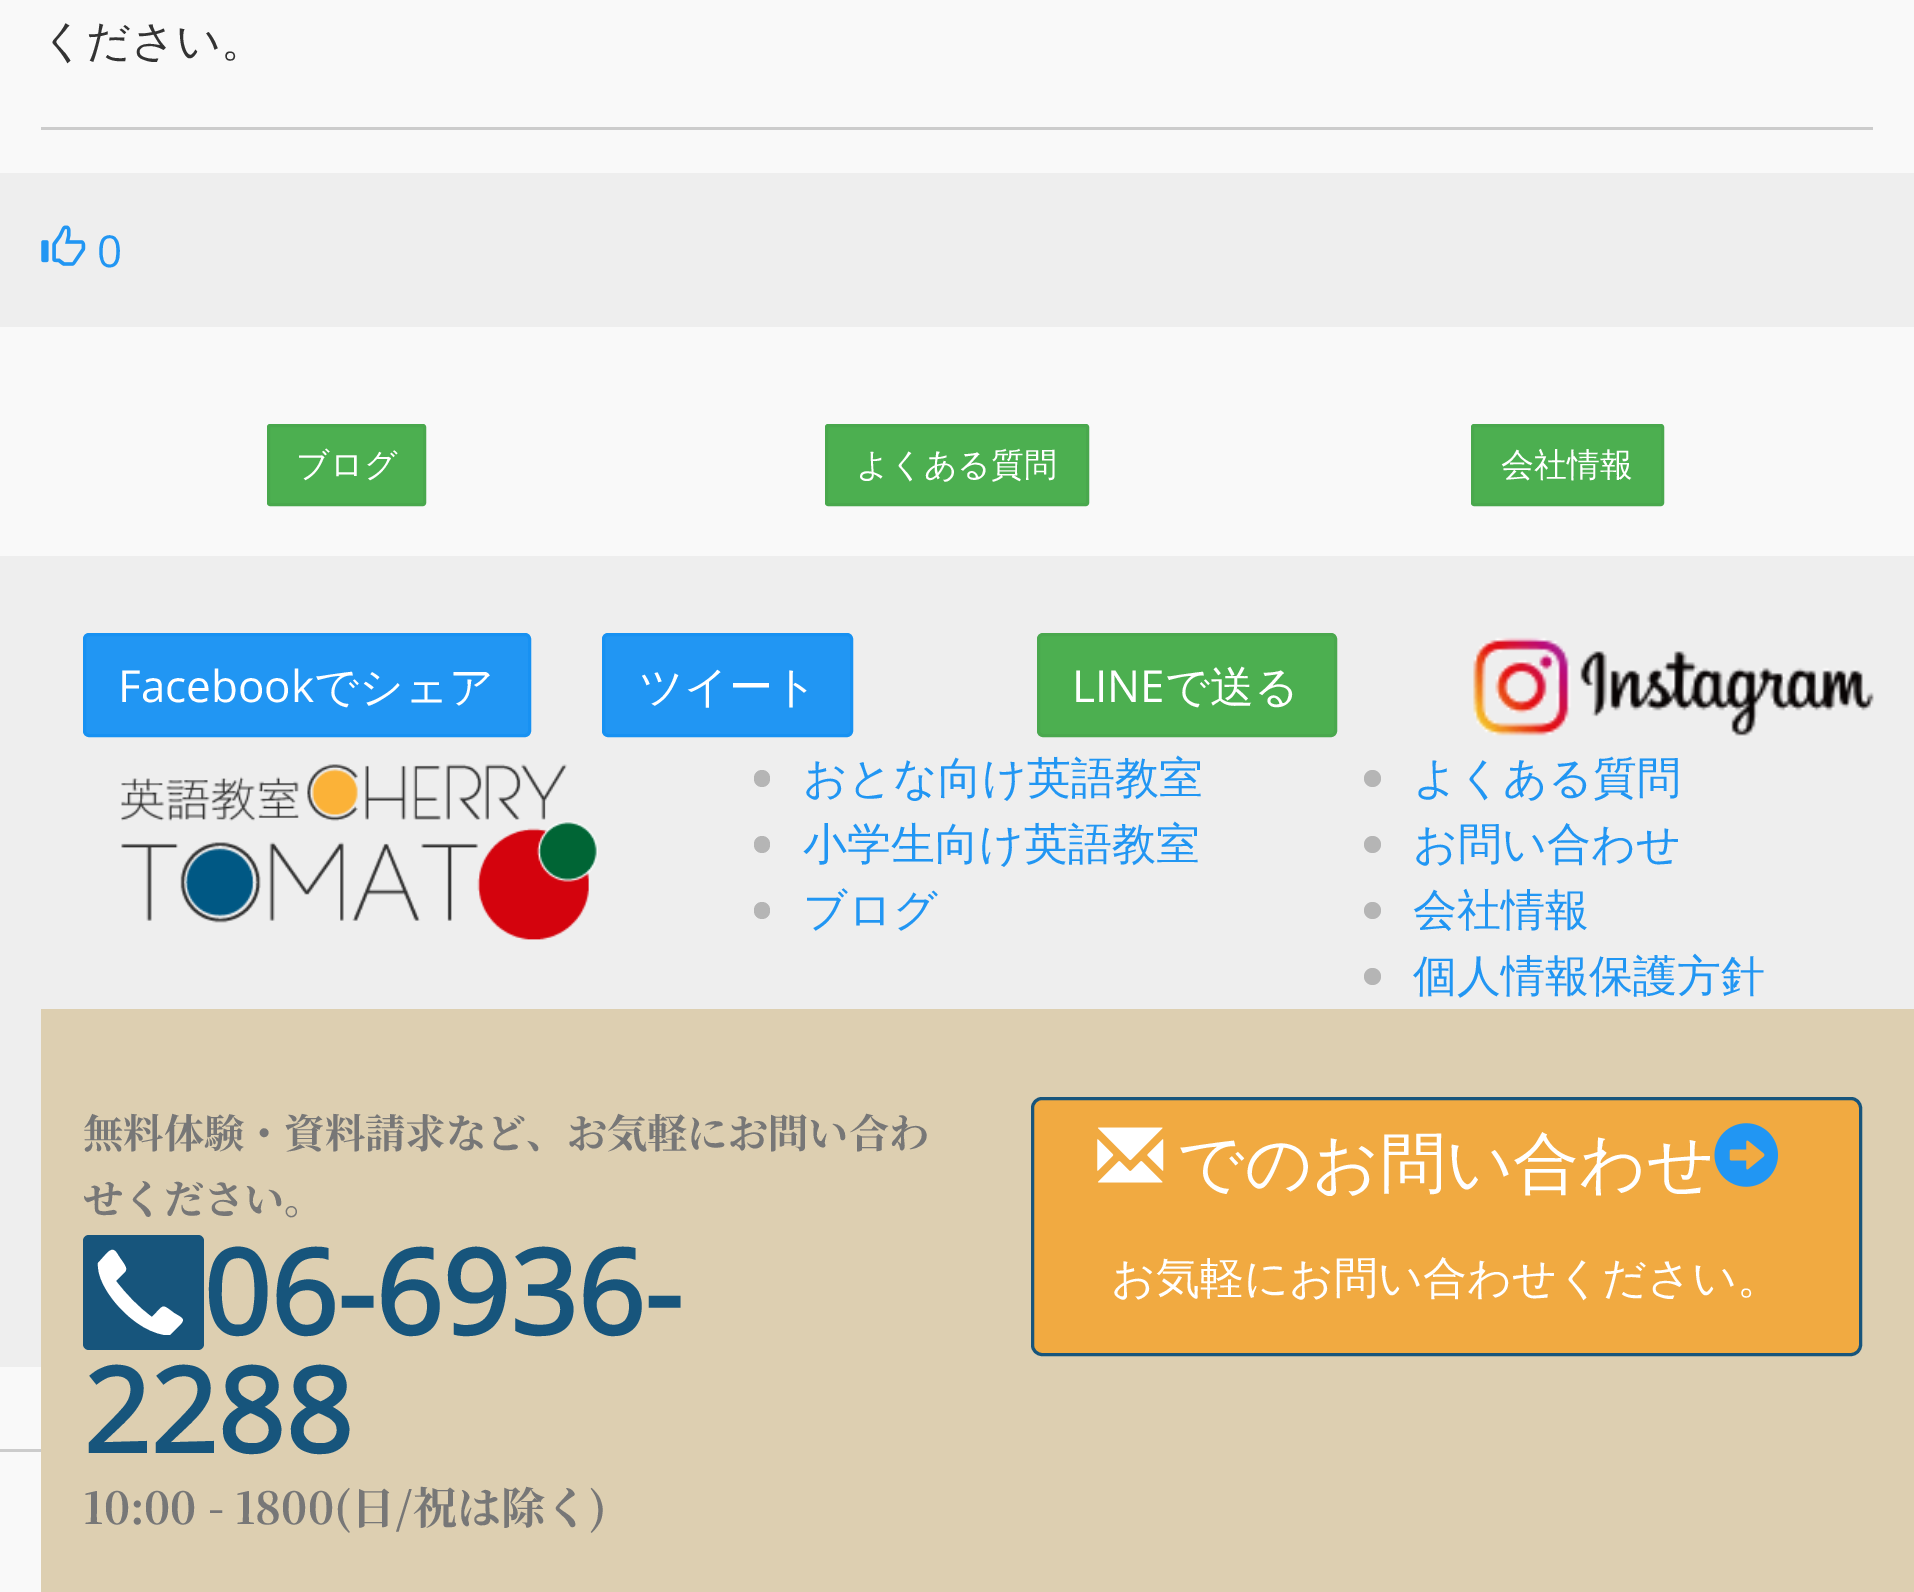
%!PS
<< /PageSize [1914 1592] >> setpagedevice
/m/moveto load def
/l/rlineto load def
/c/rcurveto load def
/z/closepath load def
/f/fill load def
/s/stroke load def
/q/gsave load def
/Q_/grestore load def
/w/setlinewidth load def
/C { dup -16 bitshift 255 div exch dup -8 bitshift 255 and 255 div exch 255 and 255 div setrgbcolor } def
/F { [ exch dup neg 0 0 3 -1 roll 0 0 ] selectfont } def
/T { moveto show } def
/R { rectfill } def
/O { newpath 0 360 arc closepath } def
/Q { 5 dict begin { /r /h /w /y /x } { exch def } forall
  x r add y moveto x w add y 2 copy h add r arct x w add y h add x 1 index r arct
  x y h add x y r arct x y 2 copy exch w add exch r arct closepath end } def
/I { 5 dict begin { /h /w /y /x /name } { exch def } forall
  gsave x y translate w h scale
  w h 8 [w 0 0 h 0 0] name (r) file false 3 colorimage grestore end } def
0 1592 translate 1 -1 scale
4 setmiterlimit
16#F9F9F9 C
0 0 1914 1592 R
16#CCCCCC C
0 1449 41 3 R
41 127 1832 3 R
/WenQuanYiZenHei-Medium 44 F
16#333333 C
(ください。) 41 56 T
16#EEEEEE C
0 173 1914 154 R
(1.rgb) 41 225 45 41 I
/OpenSans-Regular 44 F
16#2196F3 C
(0) 97 267 T
16#4CAF50 C
268.5 425.5 156 79 1.5 Q q f Q_
16#49A84D C
3 w
s
/WenQuanYiZenHei-Medium 33 F
16#FFFFFF C
(ブログ) 296 476 T
16#4CAF50 C
826.5 425.5 261 79 1.5 Q q f Q_
16#49A84D C
s
16#FFFFFF C
(よくある質問) 856 476 T
16#4CAF50 C
1472.5 425.5 190 79 1.5 Q q f Q_
16#49A84D C
s
16#FFFFFF C
(会社情報) 1501 476 T
16#EEEEEE C
0 556 1914 811 R
16#2196F3 C
84.5 634.5 445 101 4.5 Q q f Q_
16#1791F2 C
s
/OpenSans-Regular 44 F
16#FFFFFF C
(Facebook) 118 702 T
/WenQuanYiZenHei-Medium 44 F
(でシェア) 314 702 T
16#2196F3 C
603.5 634.5 248 101 4.5 Q q f Q_
16#1791F2 C
s
16#FFFFFF C
(ツイート) 639 702 T
16#4CAF50 C
1038.5 634.5 297 101 4.5 Q q f Q_
16#49A84D C
s
/OpenSans-Regular 44 F
16#FFFFFF C
(LINE) 1072 702 T
/WenQuanYiZenHei-Medium 44 F
(で送る) 1165 702 T
(2.rgb) 1473 637 401 100 I
(3.rgb) 121 764 477 176 I
16#B5B5B5 C
754 770 16 17 8 Q f
16#2196F3 C
(おとな向け英語教室) 803 793 T
16#B5B5B5 C
754 836 16 17 8 Q f
16#2196F3 C
(小学生向け英語教室) 803 859 T
16#B5B5B5 C
754 902 16 17 8 Q f
16#2196F3 C
(ブログ) 803 925 T
16#B5B5B5 C
1372.5 778.5 8.5 O f
16#2196F3 C
(よくある質問) 1413 793 T
16#B5B5B5 C
1372.5 844.5 8.5 O f
16#2196F3 C
(お問い合わせ) 1413 859 T
16#B5B5B5 C
1372.5 910.5 8.5 O f
16#2196F3 C
(会社情報) 1413 925 T
16#B5B5B5 C
1372.5 976.5 8.5 O f
16#2196F3 C
(個人情報保護方針) 1413 991 T
16#DDCFB1 C
41 1009 1873 583 R
/NotoSerifJP-Bold 40.3 F
16#777777 C
(無料体験・資料請求など、お気軽にお問い合わ) 83 1148 T
(せください。) 83 1214 T
16#17557C C
83 1235 121 115 6 Q f
16#FFFFFF C
98 1263 m 9 -10 l 7 -7 9 -1 13 5 c 10 14 7 11 -4 23 c 10 13 22 26 36 36 c 12 -12 9 -14 22 -4 c 10 6 12 6 4 14 c -8 8 l -5 0 l -20 -3 -39 -19 -51 -34 c -8 -10 -17 -25 -16 -38 c z f
/OpenSans-Bold 117.5 F
16#17557C C
(06-6936-) 203 1335 T
(2288) 83 1453 T
/NotoSerifJP-Bold 44 F
16#777777 C
(10:00 - 1800\(日/祝は除く\)) 83 1524 T
16#F1AA41 C
1032.5 1098.5 828 256 9.5 Q q f Q_
16#17557C C
s
(4.rgb) 1097 1127 67 56 I
/WenQuanYiZenHei-Medium 66 F
16#FFFFFF C
(でのお問い合わせ) 1177 1186 T
(5.rgb) 1714 1123 64 64 I
/WenQuanYiZenHei-Medium 44 F
(お気軽にお問い合わせください。) 1111 1293 T
showpage
